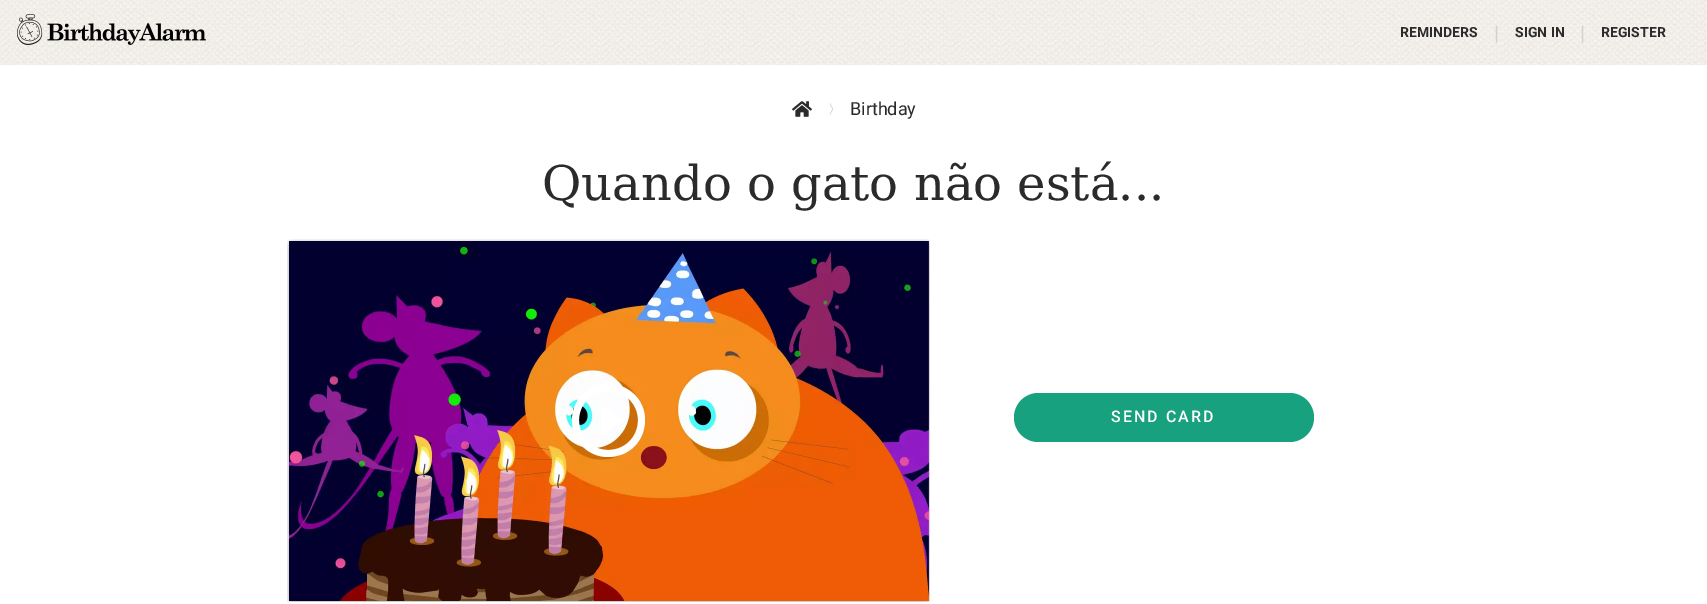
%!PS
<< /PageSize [1707 604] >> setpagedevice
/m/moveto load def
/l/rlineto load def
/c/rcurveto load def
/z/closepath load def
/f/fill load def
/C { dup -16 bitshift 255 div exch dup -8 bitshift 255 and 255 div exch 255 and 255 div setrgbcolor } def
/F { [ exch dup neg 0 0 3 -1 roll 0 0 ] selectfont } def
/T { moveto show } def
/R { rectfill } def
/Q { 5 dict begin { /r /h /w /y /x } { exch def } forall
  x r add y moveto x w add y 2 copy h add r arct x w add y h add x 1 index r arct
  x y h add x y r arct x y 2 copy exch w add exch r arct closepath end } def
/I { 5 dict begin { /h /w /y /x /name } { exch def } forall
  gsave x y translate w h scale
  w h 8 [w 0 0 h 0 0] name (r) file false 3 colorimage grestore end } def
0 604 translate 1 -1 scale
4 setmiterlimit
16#FFFFFF C
0 0 1707 604 R
(1.rgb) 0 0 1707 65 I
(2.rgb) 17 14 189 31 I
/Roboto-Bold 14 F
16#2B2B2B C
(REMINDERS) 1400 37 T
/Roboto-Regular 20 F
16#D8D0C5 C
(|) 1494 40 T
/Roboto-Bold 14 F
16#2B2B2B C
(SIGN IN) 1515 37 T
/Roboto-Regular 20 F
16#D8D0C5 C
(|) 1580 40 T
/Roboto-Bold 14 F
16#2B2B2B C
(REGISTER) 1601 37 T
(3.rgb) 792 101 20 16 I
(4.rgb) 829 103 4 12 I
/Roboto-Regular 18 F
(Birthday) 850 115 T
/DejaVuSerif-Regular 48 F
(Quando o gato não está...) 542 200 T
(5.rgb) 287 239 643 363 I
16#FFFFFF C
608 384 m -20 0 -36 16 -36 36 c 0 21 16 37 36 37 c 21 0 37 -16 37 -37 c 0 -20 -16 -36 -37 -36 c z 608 450 m -16 0 -29 -13 -29 -30 c 0 -16 13 -29 29 -29 c 17 0 30 13 30 29 c 0 17 -13 30 -30 30 c z f
601 405.5 m 0 30 l 23 -15 l z f
16#17A17E C
1014 393 300 49 24.5 Q f
/Roboto-Medium 16 F
16#FFFFFF C
1111 422 m 2 0 (SEND CARD) ashow
showpage
